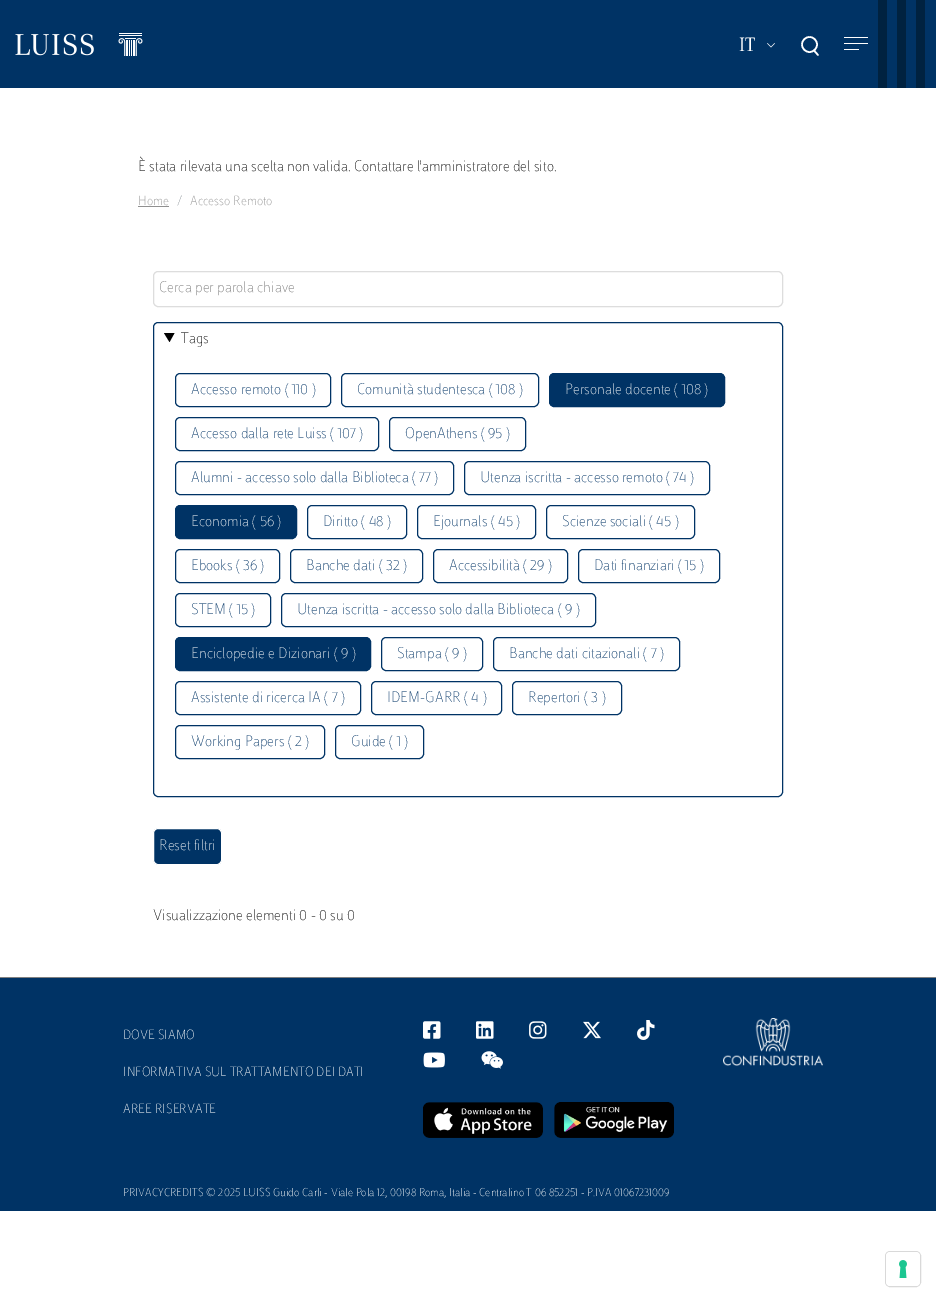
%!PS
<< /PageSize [936 1302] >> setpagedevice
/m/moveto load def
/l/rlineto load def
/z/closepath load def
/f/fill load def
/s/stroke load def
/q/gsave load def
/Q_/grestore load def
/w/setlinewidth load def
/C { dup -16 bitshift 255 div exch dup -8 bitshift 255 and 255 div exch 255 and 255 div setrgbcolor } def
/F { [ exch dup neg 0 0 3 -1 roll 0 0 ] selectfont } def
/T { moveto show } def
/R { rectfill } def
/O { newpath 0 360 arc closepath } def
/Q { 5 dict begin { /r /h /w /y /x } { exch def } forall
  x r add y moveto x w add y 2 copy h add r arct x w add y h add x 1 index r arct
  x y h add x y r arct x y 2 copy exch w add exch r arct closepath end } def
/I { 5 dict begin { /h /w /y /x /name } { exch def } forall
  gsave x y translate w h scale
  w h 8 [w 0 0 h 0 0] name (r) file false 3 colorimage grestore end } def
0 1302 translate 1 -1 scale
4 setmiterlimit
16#FFFFFF C
0 0 936 1302 R
16#003365 C
0 0 936 88 R
(1.rgb) 15 33 128 23 I
q
739 31 16 30 rectclip
/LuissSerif-Regular 20 F
16#FFFFFF C
(IT) 739 51 T
Q_
(2.rgb) 767 43 8 5 I
16#FFFFFF C
1.6 w
809.5 44.5 7.5 O s
1 setlinecap
1 setlinejoin
818 55 m -4 -4.5 l s
844 37 24 1 .5 Q f
844 43 24 1 .5 Q f
844 49 15 1 .5 Q f
16#002240 C
878 0 9 88 R
897 0 9 88 R
916 0 9 88 R
/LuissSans-Thin 16 F
16#010101 C
(È stata rilevata una scelta non valida. Contattare l'amministratore del sito.) 138 171 T
/LuissSans-Thin 14 F
16#909090 C
(Home) 138 205 T
138 206 31 1 R
16#6C757D C
(/) 177 205 T
16#909090 C
(Accesso Remoto) 190 205 T
16#DDDDDD C
1 w
0 setlinecap
0 setlinejoin
153.5 271.5 629 35 4.5 Q s
/LuissSans-Thin 16 F
16#757575 C
(Cerca per parola chiave) 159 292 T
16#003365 C
153.5 322.5 629 474 4.5 Q s
16#010101 C
164 333 m 10.5 0 l -5 9 l z f
(Tags) 181 343 T
16#003365 C
175.5 373.5 155 33 4.5 Q s
(Accesso remoto \( 110 \)) 191 394 T
341.5 373.5 197 33 4.5 Q s
(Comunità studentesca \( 108 \)) 357 394 T
549.5 373.5 175 33 4.5 Q q f Q_
s
16#FFFFFF C
(Personale docente \( 108 \)) 565 394 T
16#003365 C
175.5 417.5 203 33 4.5 Q s
(Accesso dalla rete Luiss \( 107 \)) 191 438 T
389.5 417.5 136 33 4.5 Q s
(OpenAthens \( 95 \)) 405 438 T
175.5 461.5 278 33 4.5 Q s
(Alumni - accesso solo dalla Biblioteca \( 77 \)) 191 482 T
464.5 461.5 245 33 4.5 Q s
(Utenza iscritta - accesso remoto \( 74 \)) 480 482 T
175.5 505.5 121 33 4.5 Q q f Q_
s
16#FFFFFF C
(Economia \( 56 \)) 191 526 T
16#003365 C
307.5 505.5 99 33 4.5 Q s
(Diritto \( 48 \)) 323 526 T
417.5 505.5 118 33 4.5 Q s
(Ejournals \( 45 \)) 433 526 T
546.5 505.5 148 33 4.5 Q s
(Scienze sociali \( 45 \)) 562 526 T
175.5 549.5 104 33 4.5 Q s
(Ebooks \( 36 \)) 191 570 T
290.5 549.5 132 33 4.5 Q s
(Banche dati \( 32 \)) 306 570 T
433.5 549.5 134 33 4.5 Q s
(Accessibilità \( 29 \)) 449 570 T
578.5 549.5 141 33 4.5 Q s
(Dati finanziari \( 15 \)) 594 570 T
175.5 593.5 95 33 4.5 Q s
(STEM \( 15 \)) 191 614 T
281.5 593.5 314 33 4.5 Q s
(Utenza iscritta - accesso solo dalla Biblioteca \( 9 \)) 297 614 T
175.5 637.5 195 33 4.5 Q q f Q_
s
16#FFFFFF C
(Enciclopedie e Dizionari \( 9 \)) 191 658 T
16#003365 C
381.5 637.5 101 33 4.5 Q s
(Stampa \( 9 \)) 397 658 T
493.5 637.5 186 33 4.5 Q s
(Banche dati citazionali \( 7 \)) 509 658 T
175.5 681.5 185 33 4.5 Q s
(Assistente di ricerca IA \( 7 \)) 191 702 T
371.5 681.5 130 33 4.5 Q s
(IDEM-GARR \( 4 \)) 387 702 T
512.5 681.5 109 33 4.5 Q s
(Repertori \( 3 \)) 528 702 T
175.5 725.5 149 33 4.5 Q s
(Working Papers \( 2 \)) 191 746 T
335.5 725.5 88 33 4.5 Q s
(Guide \( 1 \)) 351 746 T
153.5 828.5 68 36 4.5 Q q f Q_
16#FFFFFF C
s
(Reset filtri) 159 850 T
16#010101 C
(Visualizzazione elementi 0 - 0 su 0) 153 920 T
16#003365 C
0 978 936 233 R
16#808080 C
0 977 936 1 R
/LuissSans-Thin 14 F
16#FFFFFF C
(DOVE SIAMO) 123 1039 T
(INFORMATIVA SUL TRATTAMENTO DEI DATI) 123 1076 T
(AREE RISERVATE) 123 1113 T
(3.rgb) 423 1021 18 18 I
(4.rgb) 476 1021 18 18 I
(5.rgb) 529 1021 18 18 I
(6.rgb) 583 1021 18 18 I
(7.rgb) 637 1020 18 20 I
(8.rgb) 423 1052 22 16 I
(9.rgb) 481 1051 22 18 I
(10.rgb) 423 1102 120 36 I
(11.rgb) 554 1102 120 36 I
(12.rgb) 723 1018 100 48 I
/LuissSans-Thin 12 F
(PRIVACYCREDITS © 2025 LUISS Guido Carli - Viale Pola 12, 00198 Roma, Italia - Centralino T 06 852251 - P.IVA 01067231009) 123 1196 T
16#D9D9D9 C
885.5 1251.5 35 35 4.5 Q s
16#FFFFFF C
886 1252 34 34 4 Q f
(13.rgb) 899 1260 8 18 I
showpage
